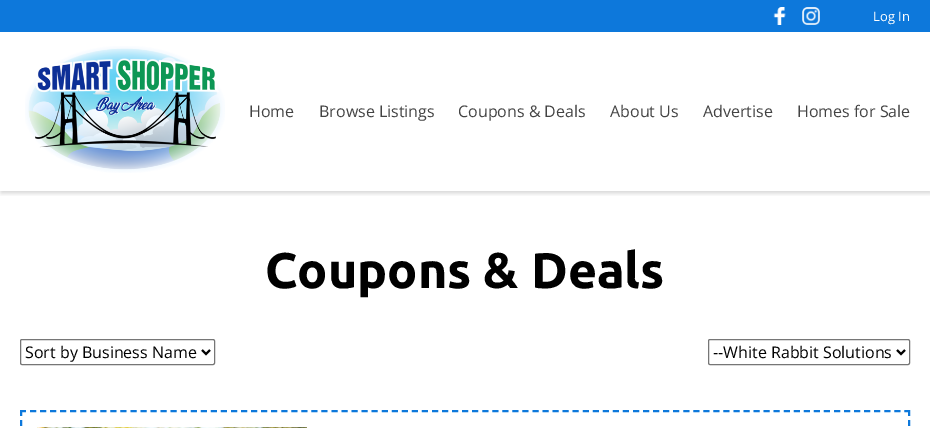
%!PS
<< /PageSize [930 428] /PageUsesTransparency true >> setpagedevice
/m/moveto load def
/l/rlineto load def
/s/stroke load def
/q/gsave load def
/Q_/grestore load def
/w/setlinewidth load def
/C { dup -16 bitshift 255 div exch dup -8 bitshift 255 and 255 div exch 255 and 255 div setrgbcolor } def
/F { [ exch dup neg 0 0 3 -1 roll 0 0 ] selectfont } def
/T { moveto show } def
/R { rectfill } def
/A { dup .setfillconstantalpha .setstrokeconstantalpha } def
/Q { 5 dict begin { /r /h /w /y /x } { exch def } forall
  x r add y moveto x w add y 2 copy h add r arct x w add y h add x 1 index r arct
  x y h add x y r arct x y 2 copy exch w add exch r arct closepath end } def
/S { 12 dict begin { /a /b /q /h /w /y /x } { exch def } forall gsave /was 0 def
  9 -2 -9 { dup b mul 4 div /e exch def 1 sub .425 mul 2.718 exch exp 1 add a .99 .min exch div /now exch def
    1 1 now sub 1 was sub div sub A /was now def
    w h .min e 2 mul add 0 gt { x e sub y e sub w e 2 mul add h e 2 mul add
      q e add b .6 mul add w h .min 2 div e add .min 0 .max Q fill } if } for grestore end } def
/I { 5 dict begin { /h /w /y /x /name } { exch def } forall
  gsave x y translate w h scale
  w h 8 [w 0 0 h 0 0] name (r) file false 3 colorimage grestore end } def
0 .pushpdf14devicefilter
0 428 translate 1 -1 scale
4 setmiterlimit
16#FFFFFF C
0 0 930 428 R
q
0 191 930 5 rectclip
16#000000 C
1 2 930 191 0 2.5 .17 S
Q_
16#0D78DB C
0 0 930 32 R
(1.rgb) 773 7 13 18 I
(2.rgb) 802 7 18 18 I
/OpenSans-Regular 13 F
16#FFFFFF C
(Log In) 873 21 T
(3.rgb) 25 46 200 127 I
/OpenSans-Regular 16 F
16#434343 C
(Home) 249 117 T
(Browse Listings) 319 117 T
(Coupons & Deals) 458 117 T
(About Us) 610 117 T
(Advertise) 703 117 T
(Homes for Sale) 797 117 T
/Ubuntu-Bold 50 F
16#000000 C
(Coupons & Deals) 265 288 T
16#767676 C
20.5 339.5 194 25 1.5 Q s
16#000000 C
2 w
202 350 m 4 4 l 4 -4 l s
/OpenSans-Regular 16 F
(Sort by Business Name) 25 358 T
16#767676 C
1 w
708.5 339.5 201 25 1.5 Q s
16#000000 C
2 w
897 350 m 4 4 l 4 -4 l s
(--White Rabbit Solutions) 713 358 T
16#0D78DB C
[6 4.05] 0 setdash
20 411 m 890 0 l s
[6 4] 0 setdash
909 410 m 0 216 l s
21 410 m 0 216 l s
(4.rgb) 37 427 270 1 I
.poppdf14devicefilter showpage
